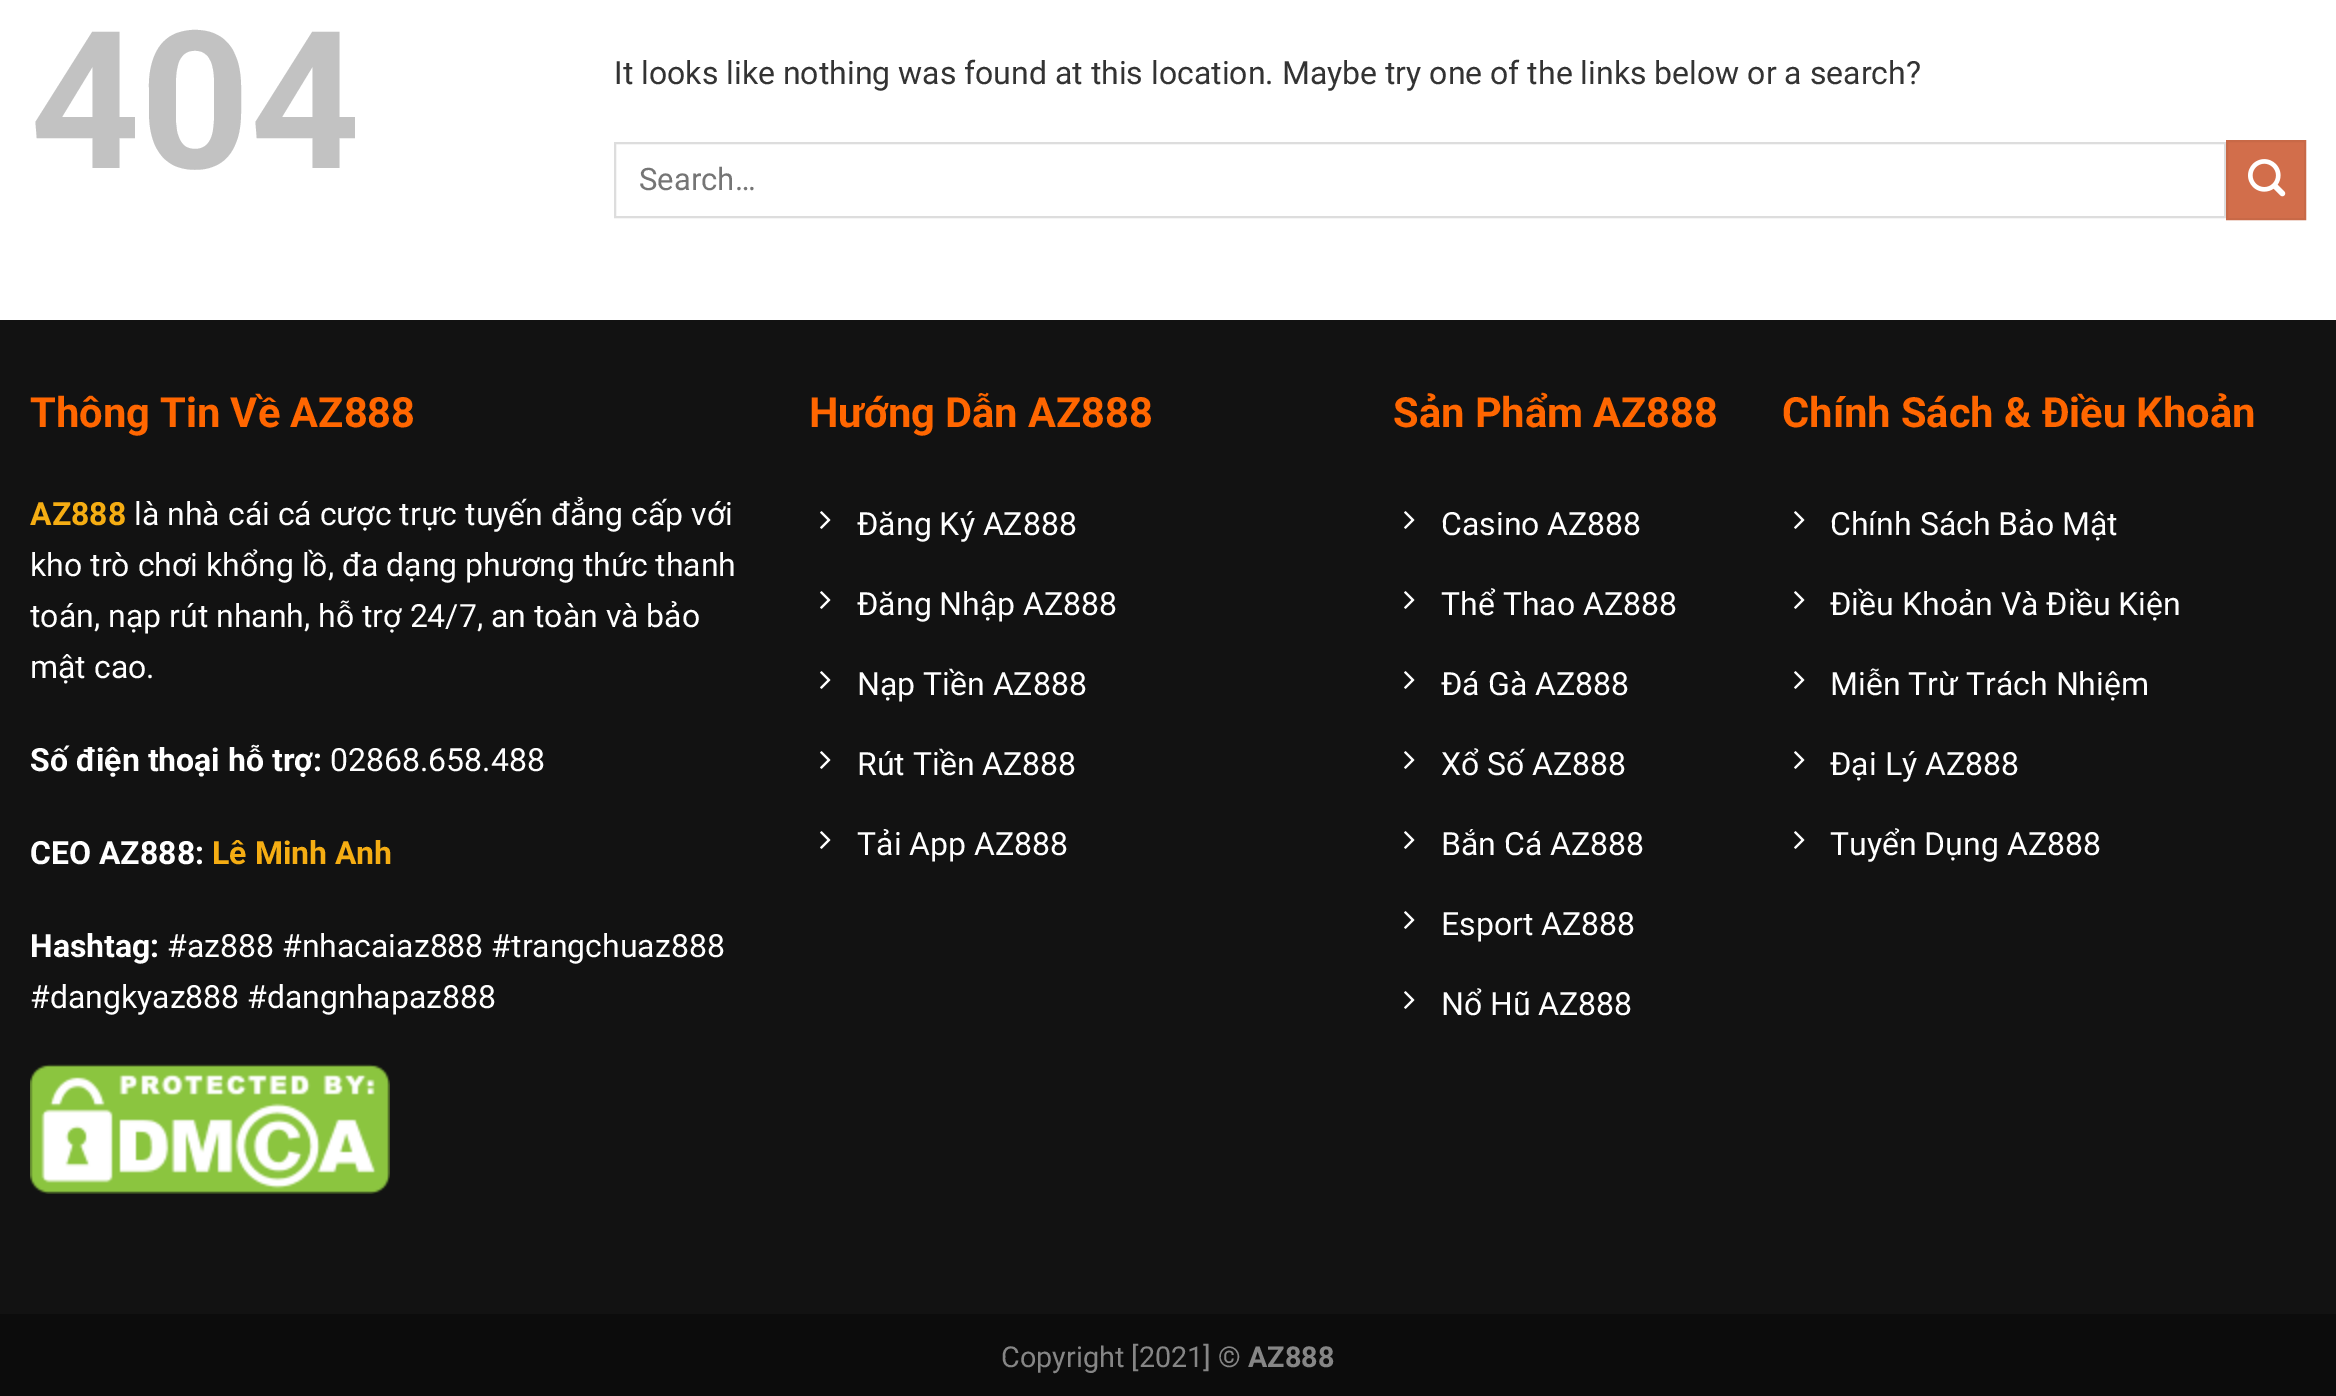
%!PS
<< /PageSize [2336 1396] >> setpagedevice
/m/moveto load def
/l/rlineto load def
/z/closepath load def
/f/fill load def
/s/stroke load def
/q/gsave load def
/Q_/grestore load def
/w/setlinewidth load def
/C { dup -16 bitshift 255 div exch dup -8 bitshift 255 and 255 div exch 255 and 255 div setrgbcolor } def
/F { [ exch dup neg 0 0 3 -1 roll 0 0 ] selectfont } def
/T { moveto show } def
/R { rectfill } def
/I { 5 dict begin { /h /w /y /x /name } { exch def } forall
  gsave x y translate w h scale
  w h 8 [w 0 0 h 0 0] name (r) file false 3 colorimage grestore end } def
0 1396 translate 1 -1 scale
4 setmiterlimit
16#FFFFFF C
0 0 2336 1396 R
/Roboto-Bold 192 F
16#C2C2C2 C
(404) 30 168 T
/Roboto-Regular 32 F
16#333333 C
(It looks like nothing was found at this location. Maybe try one of the links below or a search?) 614 84 T
16#DDDDDD C
2 w
615 143 1610 74 rectstroke
/Roboto-Regular 31 F
16#757575 C
(Search…) 639 190 T
16#D26E4B C
2227 141 m 78 0 l 0 78 l -78 0 l z q f Q_
16#C86947 C
s
(1.rgb) 2248 159 38 38 I
16#121212 C
0 320 2336 994 R
/Roboto-Bold 41.6 F
16#FF6600 C
(Thông Tin Về AZ888) 30 427 T
/Roboto-Bold 32 F
16#F5AD13 C
(AZ888) 30 525 T
/Roboto-Regular 32 F
16#FFFFFF C
(là nhà cái cá cược trực tuyến đẳng cấp với) 134 525 T
(kho trò chơi khổng lồ, đa dạng phương thức thanh) 30 576 T
(toán, nạp rút nhanh, hỗ trợ 24/7, an toàn và bảo) 30 627 T
(mật cao.) 30 678 T
/Roboto-Bold 32 F
(Số điện thoại hỗ trợ:) 30 771 T
/Roboto-Regular 32 F
(02868.658.488) 330 771 T
/Roboto-Bold 32 F
(CEO AZ888:) 30 864 T
16#F5AD13 C
(Lê Minh Anh) 212 864 T
16#FFFFFF C
(Hashtag:) 30 957 T
/Roboto-Regular 32 F
(#az888 #nhacaiaz888 #trangchuaz888) 167 957 T
(#dangkyaz888 #dangnhapaz888) 30 1008 T
(2.rgb) 30 1064 360 130 I
/Roboto-Bold 41.6 F
16#FF6600 C
(Hướng Dẫn AZ888) 809 427 T
(3.rgb) 820 511 11 18 I
/Roboto-Regular 32 F
16#FFFFFF C
(Đăng Ký AZ888) 857 535 T
(3.rgb) 820 591 11 18 I
(Đăng Nhập AZ888) 857 615 T
(3.rgb) 820 671 11 18 I
(Nạp Tiền AZ888) 857 695 T
(3.rgb) 820 751 11 18 I
(Rút Tiền AZ888) 857 775 T
(3.rgb) 820 831 11 18 I
(Tải App AZ888) 857 855 T
/Roboto-Bold 41.6 F
16#FF6600 C
(Sản Phẩm AZ888) 1393 427 T
(3.rgb) 1404 511 11 18 I
/Roboto-Regular 32 F
16#FFFFFF C
(Casino AZ888) 1441 535 T
(3.rgb) 1404 591 11 18 I
(Thể Thao AZ888) 1441 615 T
(3.rgb) 1404 671 11 18 I
(Đá Gà AZ888) 1441 695 T
(3.rgb) 1404 751 11 18 I
(Xổ Số AZ888) 1441 775 T
(3.rgb) 1404 831 11 18 I
(Bắn Cá AZ888) 1441 855 T
(3.rgb) 1404 911 11 18 I
(Esport AZ888) 1441 935 T
(3.rgb) 1404 991 11 18 I
(Nổ Hũ AZ888) 1441 1015 T
/Roboto-Bold 41.6 F
16#FF6600 C
(Chính Sách & Điều Khoản) 1782 427 T
(3.rgb) 1794 511 11 18 I
/Roboto-Regular 32 F
16#FFFFFF C
(Chính Sách Bảo Mật) 1830 535 T
(3.rgb) 1794 591 11 18 I
(Điều Khoản Và Điều Kiện) 1830 615 T
(3.rgb) 1794 671 11 18 I
(Miễn Trừ Trách Nhiệm) 1830 695 T
(3.rgb) 1794 751 11 18 I
(Đại Lý AZ888) 1830 775 T
(3.rgb) 1794 831 11 18 I
(Tuyển Dụng AZ888) 1830 855 T
16#0C0C0C C
0 1314 2336 82 R
/Roboto-Regular 28.75 F
16#868686 C
(Copyright [2021] ©) 1001 1367 T
/Roboto-Bold 28.75 F
(AZ888) 1248 1367 T
showpage
